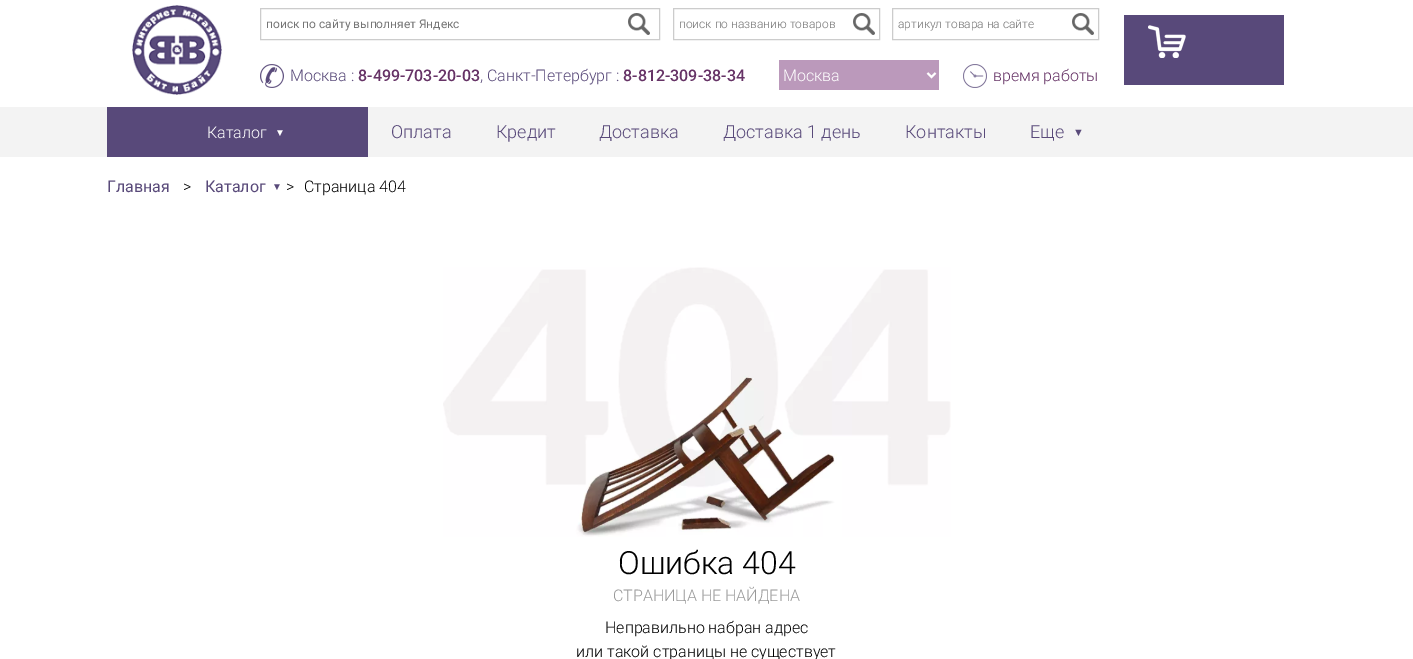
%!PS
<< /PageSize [1413 659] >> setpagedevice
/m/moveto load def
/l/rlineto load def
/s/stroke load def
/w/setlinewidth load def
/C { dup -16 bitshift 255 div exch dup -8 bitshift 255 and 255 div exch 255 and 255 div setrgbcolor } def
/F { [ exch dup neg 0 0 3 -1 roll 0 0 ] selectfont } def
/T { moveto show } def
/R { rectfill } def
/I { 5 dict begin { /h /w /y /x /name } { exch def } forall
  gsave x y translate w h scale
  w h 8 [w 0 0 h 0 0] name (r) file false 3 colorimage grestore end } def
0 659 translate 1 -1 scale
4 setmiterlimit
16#FFFFFF C
0 0 1413 659 R
(1.rgb) 132 5 90 90 I
16#CCCCCC C
260.5 8.5 399 31 rectstroke
/Roboto-Regular 12 F
16#757575 C
(поиск по сайту выполняет Яндекс) 266 28 T
(2.rgb) 628 13 22 22 I
16#CCCCCC C
673.5 8.5 206 31 rectstroke
/Roboto-Light 12 F
16#757575 C
(поиск по названию товаров) 679 28 T
(2.rgb) 853 13 22 22 I
16#CCCCCC C
892.5 8.5 206 31 rectstroke
16#757575 C
(артикул товара на сайте) 898 28 T
(2.rgb) 1072 13 22 22 I
(3.rgb) 260 64 24 24 I
/Roboto-Light 16 F
16#594A7A C
(Москва :) 290 81 T
/Roboto-Medium 16 F
16#663366 C
(8-499-703-20-03) 358 81 T
/Roboto-Light 16 F
16#594A7A C
(, Санкт-Петербург :) 480 81 T
/Roboto-Medium 16 F
16#663366 C
(8-812-309-38-34) 623 81 T
16#BB99BB C
779 60 160 30 R
16#FFFFFF C
2 w
927.5 73 m 4 4 l 4 -4 l s
/Roboto-Light 16 F
(Москва) 783 81 T
(4.rgb) 963 64 24 24 I
16#663366 C
(время работы) 993 81 T
16#58497A C
1124 15 160 70 R
(5.rgb) 1148 25 38 33 I
16#F3F3F3 C
0 107 1413 50 R
16#58497A C
107 107 261 50 R
16#FFFFFF C
(Каталог) 207 138 T
/LiberationSans-Regular 10 F
(▼) 275 136 T
/Roboto-Light 18 F
16#594A7A C
(Оплата) 391 138 T
(Кредит) 496 138 T
(Доставка) 599 138 T
(Доставка 1 день) 723 138 T
(Контакты) 905 138 T
(Еще) 1030 138 T
/LiberationSans-Regular 11 F
(▼) 1073 136 T
/Roboto-Regular 16 F
(Главная) 107 192 T
/Roboto-Light 16 F
16#000000 C
(>) 183 192 T
/Roboto-Regular 16 F
16#594A7A C
(Каталог) 205 192 T
/LiberationSans-Regular 10 F
(▼) 272 190 T
/Roboto-Light 16 F
16#000000 C
(>) 286 192 T
(Страница 404) 304 192 T
(6.rgb) 443 267 508 270 I
/Roboto-Light 32 F
(Ошибка 404) 618 574 T
/Roboto-Light 16 F
16#999999 C
(СТРАНИЦА НЕ НАЙДЕНА) 613 601 T
16#000000 C
(Неправильно набран адрес) 605 633 T
(или такой страницы не существует) 576 657 T
showpage
